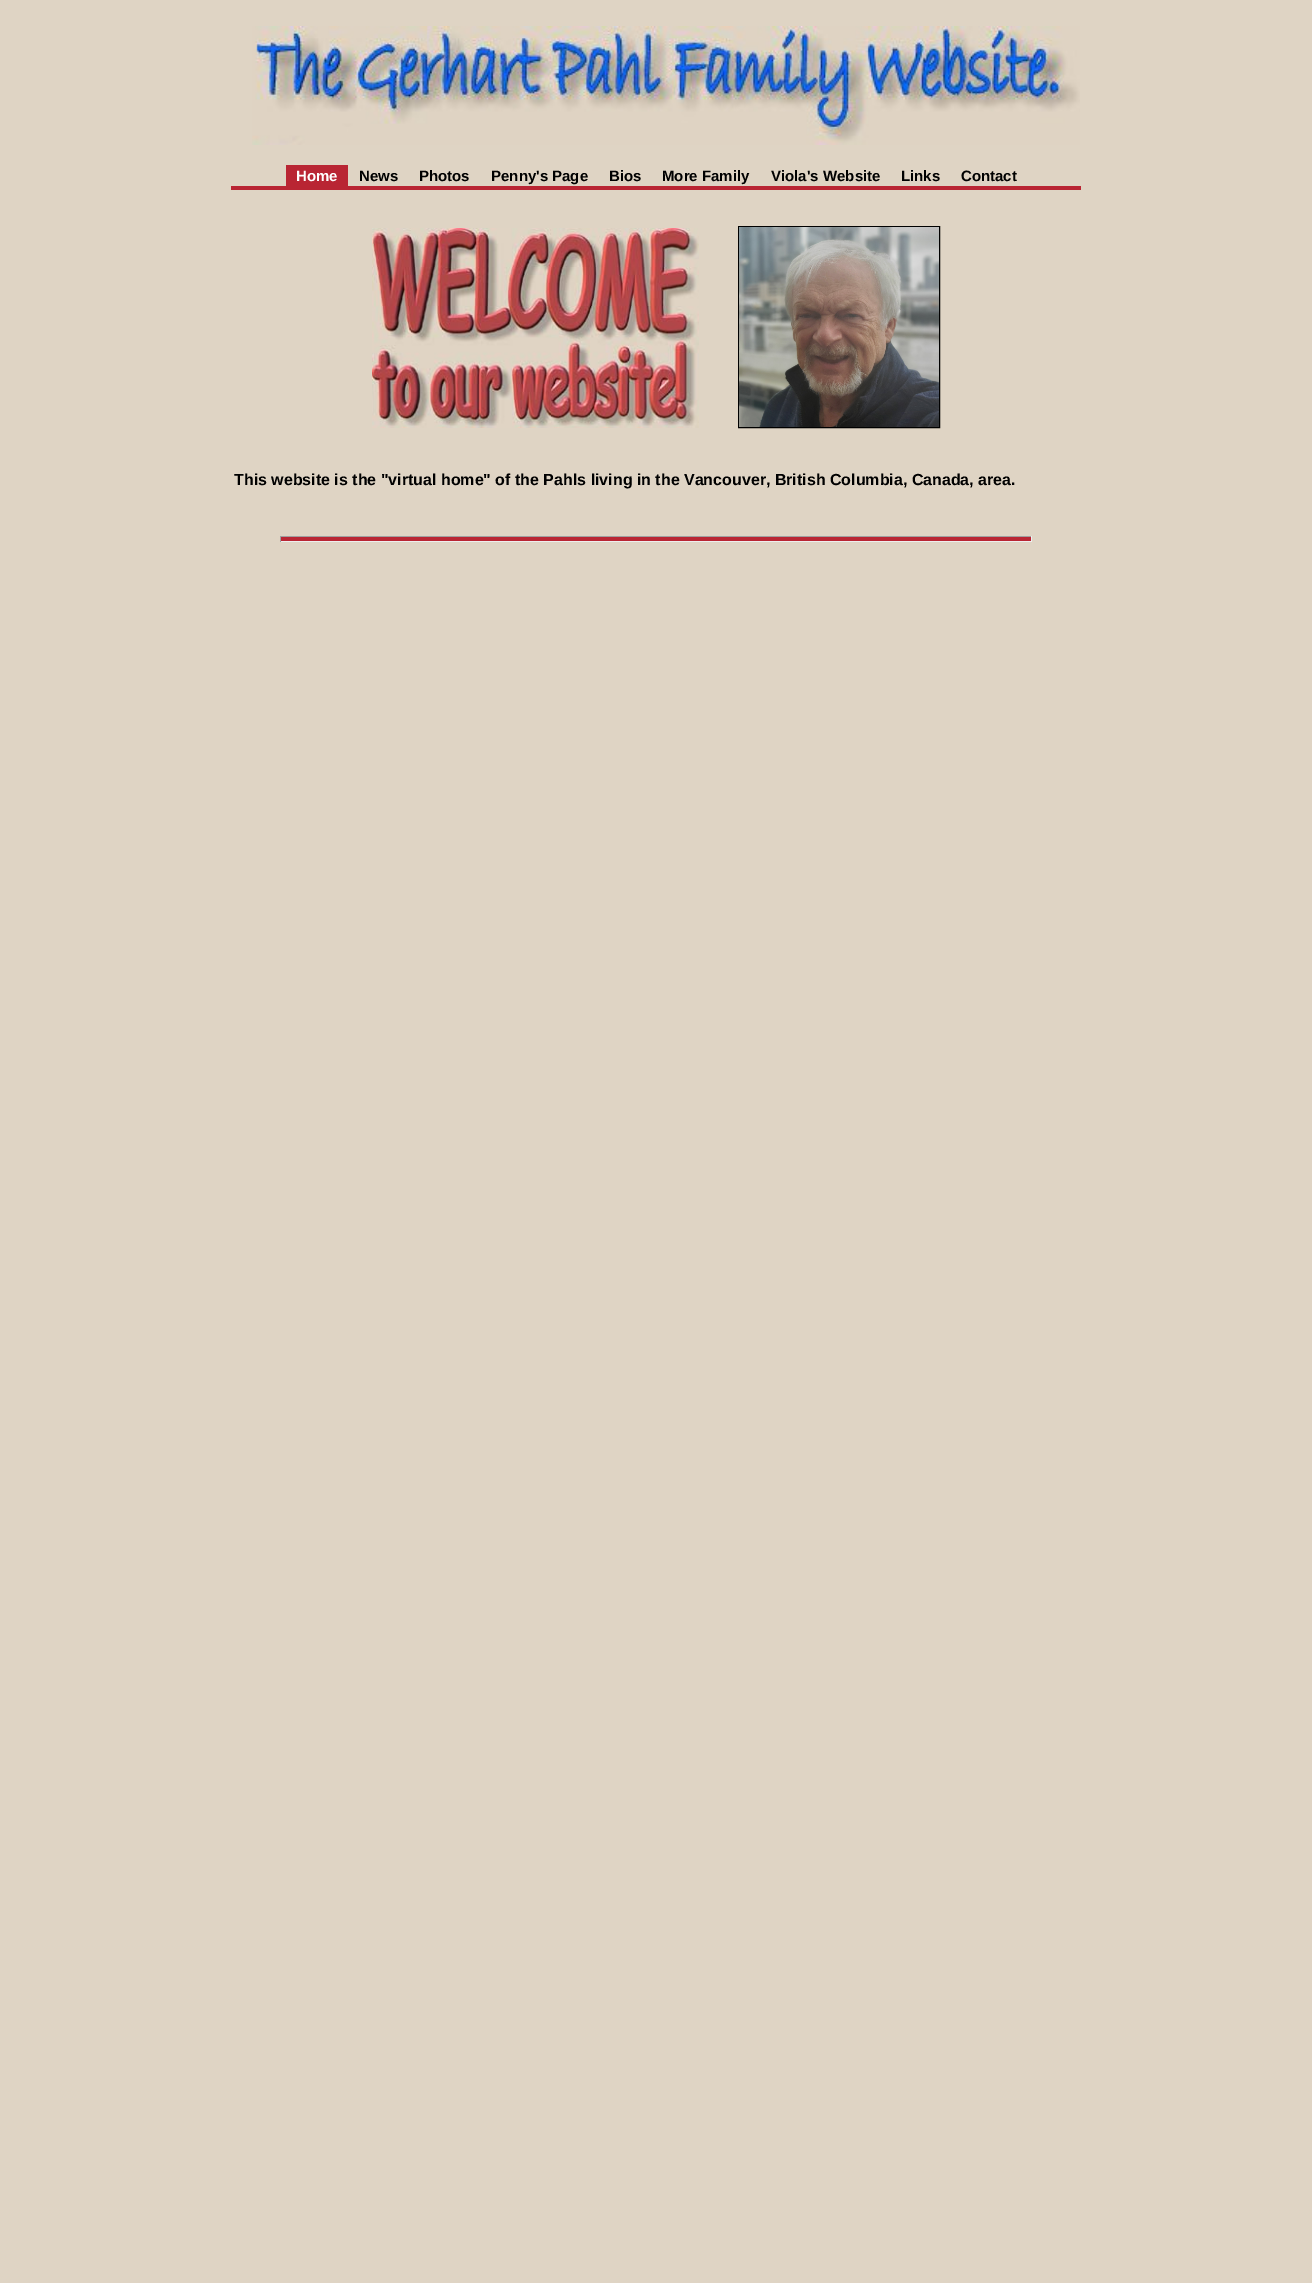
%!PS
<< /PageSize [1312 2283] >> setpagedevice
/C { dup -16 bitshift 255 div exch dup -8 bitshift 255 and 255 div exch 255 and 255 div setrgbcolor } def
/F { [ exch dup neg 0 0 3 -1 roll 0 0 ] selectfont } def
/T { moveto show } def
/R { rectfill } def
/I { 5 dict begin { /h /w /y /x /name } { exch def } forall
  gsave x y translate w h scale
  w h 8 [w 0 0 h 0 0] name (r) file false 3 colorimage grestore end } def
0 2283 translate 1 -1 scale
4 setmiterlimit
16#DFD4C4 C
0 0 1312 2283 R
(1.rgb) 252 26 828 119 I
16#B92533 C
231 186 850 4 R
286 165 62 21 R
/LiberationSans-Bold 15 F
16#FFFFFF C
(Home) 296 181 T
16#000000 C
(News) 359 181 T
(Photos) 419 181 T
(Penny's Page) 491 181 T
(Bios) 609 181 T
(More Family) 662 181 T
(Viola's Website) 771 181 T
(Links) 901 181 T
(Contact) 961 181 T
738.5 226.5 201 201 rectstroke
(2.rgb) 372 228 327 200 I
(3.rgb) 739 227 200 200 I
/LiberationSans-Bold 16 F
(This website is the "virtual home" of the Pahls living in the Vancouver, British Columbia, Canada, area.) 234 485 T
16#B92533 C
280 537 752 4 R
16#9F9F9F C
280 536 752 1 R
16#EEEEEE C
1031 536 1 6 R
280 541 752 1 R
16#9F9F9F C
280 536 1 6 R
showpage
